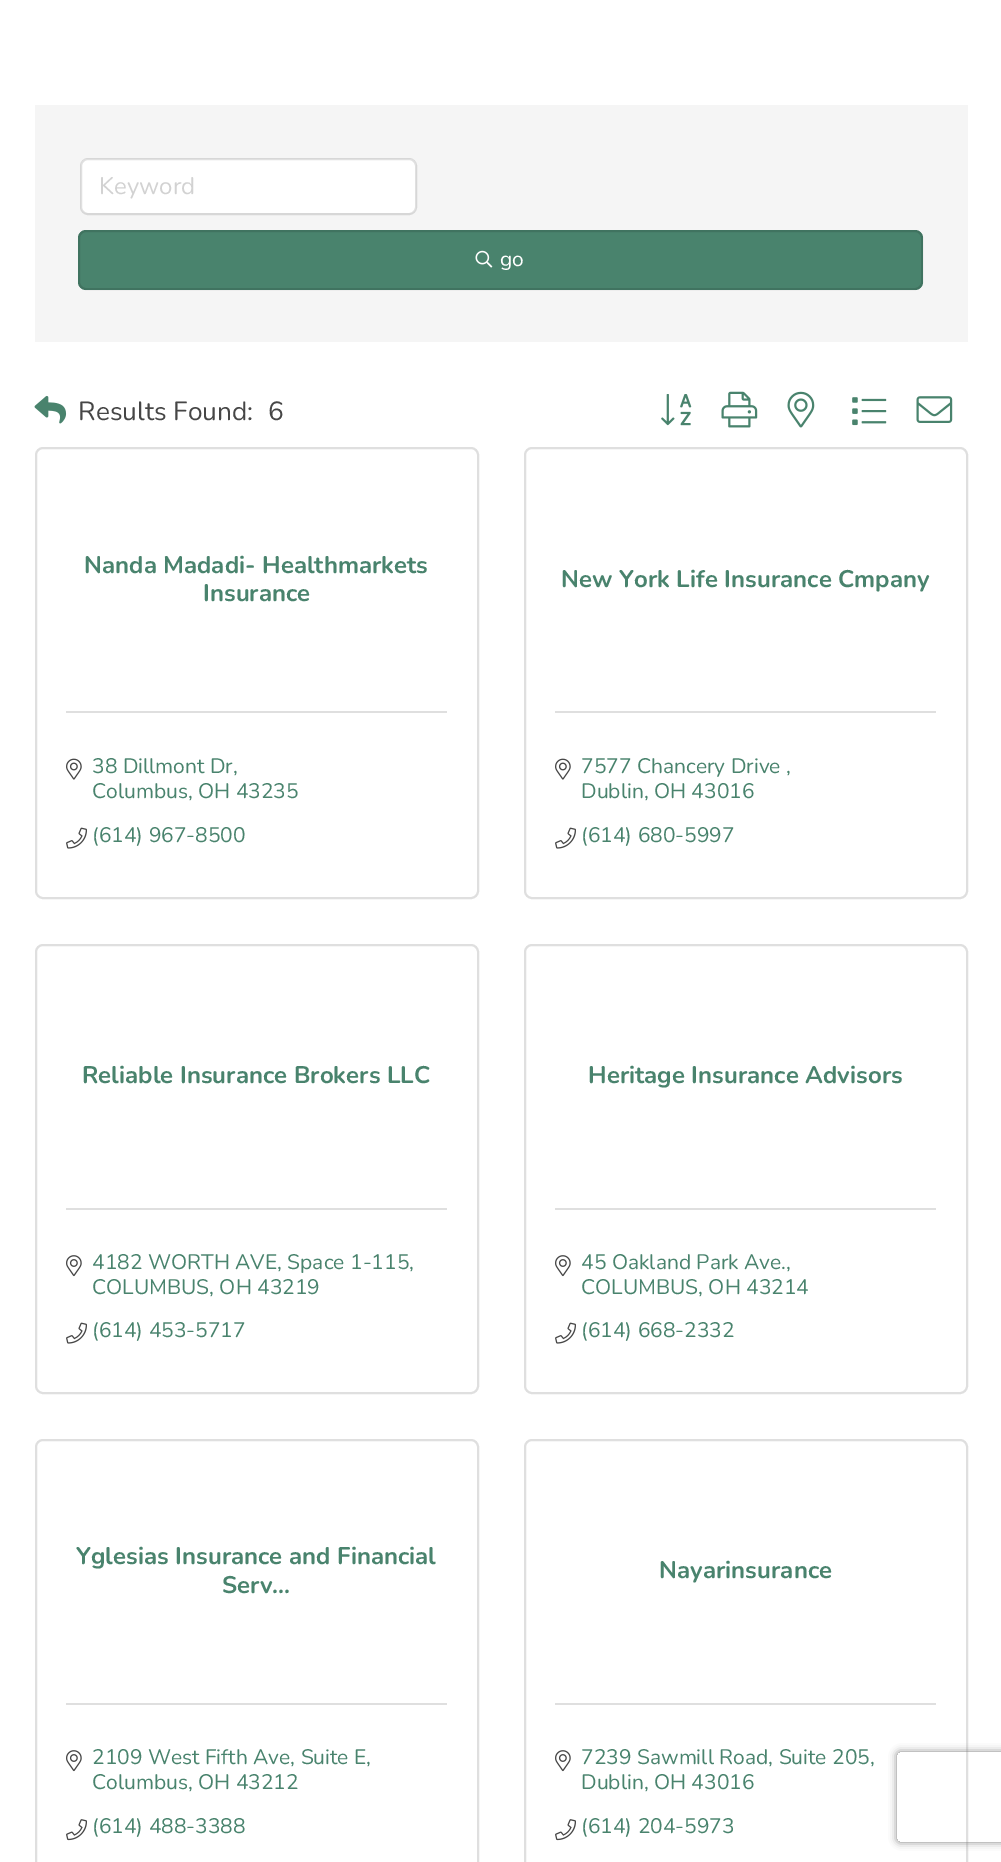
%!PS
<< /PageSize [1001 1862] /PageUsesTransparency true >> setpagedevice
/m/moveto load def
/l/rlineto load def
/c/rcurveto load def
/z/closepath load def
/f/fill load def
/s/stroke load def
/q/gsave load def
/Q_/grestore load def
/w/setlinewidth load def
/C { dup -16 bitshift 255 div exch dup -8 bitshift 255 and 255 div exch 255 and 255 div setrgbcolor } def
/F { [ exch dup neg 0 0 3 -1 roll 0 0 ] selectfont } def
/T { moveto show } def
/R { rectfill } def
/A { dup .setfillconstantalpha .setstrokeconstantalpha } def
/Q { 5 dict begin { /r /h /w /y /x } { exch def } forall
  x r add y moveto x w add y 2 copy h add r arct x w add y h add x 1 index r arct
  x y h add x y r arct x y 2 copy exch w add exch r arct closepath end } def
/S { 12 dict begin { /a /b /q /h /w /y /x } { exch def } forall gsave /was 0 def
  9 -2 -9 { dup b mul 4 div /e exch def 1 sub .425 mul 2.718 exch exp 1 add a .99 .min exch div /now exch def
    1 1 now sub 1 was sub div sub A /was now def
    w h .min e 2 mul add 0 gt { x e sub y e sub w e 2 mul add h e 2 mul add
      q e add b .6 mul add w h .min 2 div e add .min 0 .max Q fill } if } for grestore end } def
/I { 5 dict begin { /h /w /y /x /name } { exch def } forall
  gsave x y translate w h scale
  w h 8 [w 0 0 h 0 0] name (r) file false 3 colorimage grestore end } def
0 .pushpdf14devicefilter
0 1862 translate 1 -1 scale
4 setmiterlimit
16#FFFFFF C
0 0 1001 1862 R
16#F5F5F5 C
35 105 933 237 R
16#FFFFFF C
81 159 335 54 6 Q f
0.12 A
16#000000 C
2 w
81 159 335 55 7 Q s
/Nunito-Regular 24 F
1 A
16#D2D2D2 C
(Keyword) 99 194 T
16#49836D C
78 230 845 60 8 Q f
0.12 A
16#000000 C
79 231 843 58 7 Q s
1 A
(1.rgb) 475 250 18 18 I
/Nunito-Regular 21 F
16#FFFFFF C
(go) 500 266 T
(2.rgb) 34 395 33 29 I
/Nunito-Regular 26.25 F
16#464646 C
(Results Found:) 78 420 T
(6) 268 420 T
(3.rgb) 661 394 31 32 I
(4.rgb) 721 391 37 37 I
(5.rgb) 787 391 28 37 I
(6.rgb) 852 397 35 29 I
(7.rgb) 916 396 37 27 I
16#DFDFDF C
36 448 442 450 7 Q s
/Nunito-Bold 24 F
16#49836D C
(Nanda Madadi- Healthmarkets) 84 573 T
(Insurance) 203 601 T
16#DFDFDF C
66 711 381 2 R
(8.rgb) 66 758 16 22 I
/Nunito-Regular 21 F
16#49836D C
(38 Dillmont Dr,) 92 773 T
(Columbus, OH 43235) 92 798 T
(9.rgb) 66 827 21 22 I
(\(614\) 967-8500) 92 842 T
16#DFDFDF C
525 448 442 450 7 Q s
/Nunito-Bold 24 F
16#49836D C
(New York Life Insurance Cmpany) 561 587 T
16#DFDFDF C
555 711 381 2 R
(8.rgb) 555 758 16 22 I
/Nunito-Regular 21 F
16#49836D C
(7577 Chancery Drive ,) 581 773 T
(Dublin, OH 43016) 581 798 T
(9.rgb) 555 827 21 22 I
(\(614\) 680-5997) 581 842 T
16#DFDFDF C
36 945 442 448 7 Q s
/Nunito-Bold 24 F
16#49836D C
(Reliable Insurance Brokers LLC) 82 1083 T
16#DFDFDF C
66 1208 381 2 R
(10.rgb) 66 1255 16 22 I
/Nunito-Regular 21 F
16#49836D C
(4182 WORTH AVE, Space 1-115,) 92 1269 T
(COLUMBUS, OH 43219) 92 1294 T
(9.rgb) 66 1322 21 22 I
(\(614\) 453-5717) 92 1337 T
16#DFDFDF C
525 945 442 448 7 Q s
/Nunito-Bold 24 F
16#49836D C
(Heritage Insurance Advisors) 588 1083 T
16#DFDFDF C
555 1208 381 2 R
(10.rgb) 555 1255 16 22 I
/Nunito-Regular 21 F
16#49836D C
(45 Oakland Park Ave.,) 581 1269 T
(COLUMBUS, OH 43214) 581 1294 T
(9.rgb) 555 1322 21 22 I
(\(614\) 668-2332) 581 1337 T
16#DFDFDF C
36 1440 442 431 7 Q s
/Nunito-Bold 24 F
16#49836D C
(Yglesias Insurance and Financial) 76 1564 T
(Serv...) 222 1593 T
16#DFDFDF C
66 1703 381 2 R
(10.rgb) 66 1750 16 22 I
/Nunito-Regular 21 F
16#49836D C
(2109 West Fifth Ave, Suite E,) 92 1764 T
(Columbus, OH 43212) 92 1789 T
(11.rgb) 66 1819 21 22 I
(\(614\) 488-3388) 92 1833 T
16#DFDFDF C
525 1440 442 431 7 Q s
/Nunito-Bold 24 F
16#49836D C
(Nayarinsurance) 659 1578 T
16#DFDFDF C
555 1703 381 2 R
(10.rgb) 555 1750 16 22 I
/Nunito-Regular 21 F
16#49836D C
(7239 Sawmill Road, Suite 205,) 581 1764 T
(Dublin, OH 43016) 581 1789 T
(11.rgb) 555 1819 21 22 I
(\(614\) 204-5973) 581 1833 T
q
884 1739 m 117 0 l 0 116 l -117 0 l z 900 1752 m 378 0 l 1.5 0 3 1.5 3 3 c 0 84 l 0 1.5 -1.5 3 -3 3 c -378 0 l -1.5 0 -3 -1.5 -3 -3 c 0 -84 l 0 -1.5 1.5 -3 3 -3 c z eoclip newpath
16#808080 C
897 1752 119 90 3 4 1 S
Q_
.poppdf14devicefilter showpage
